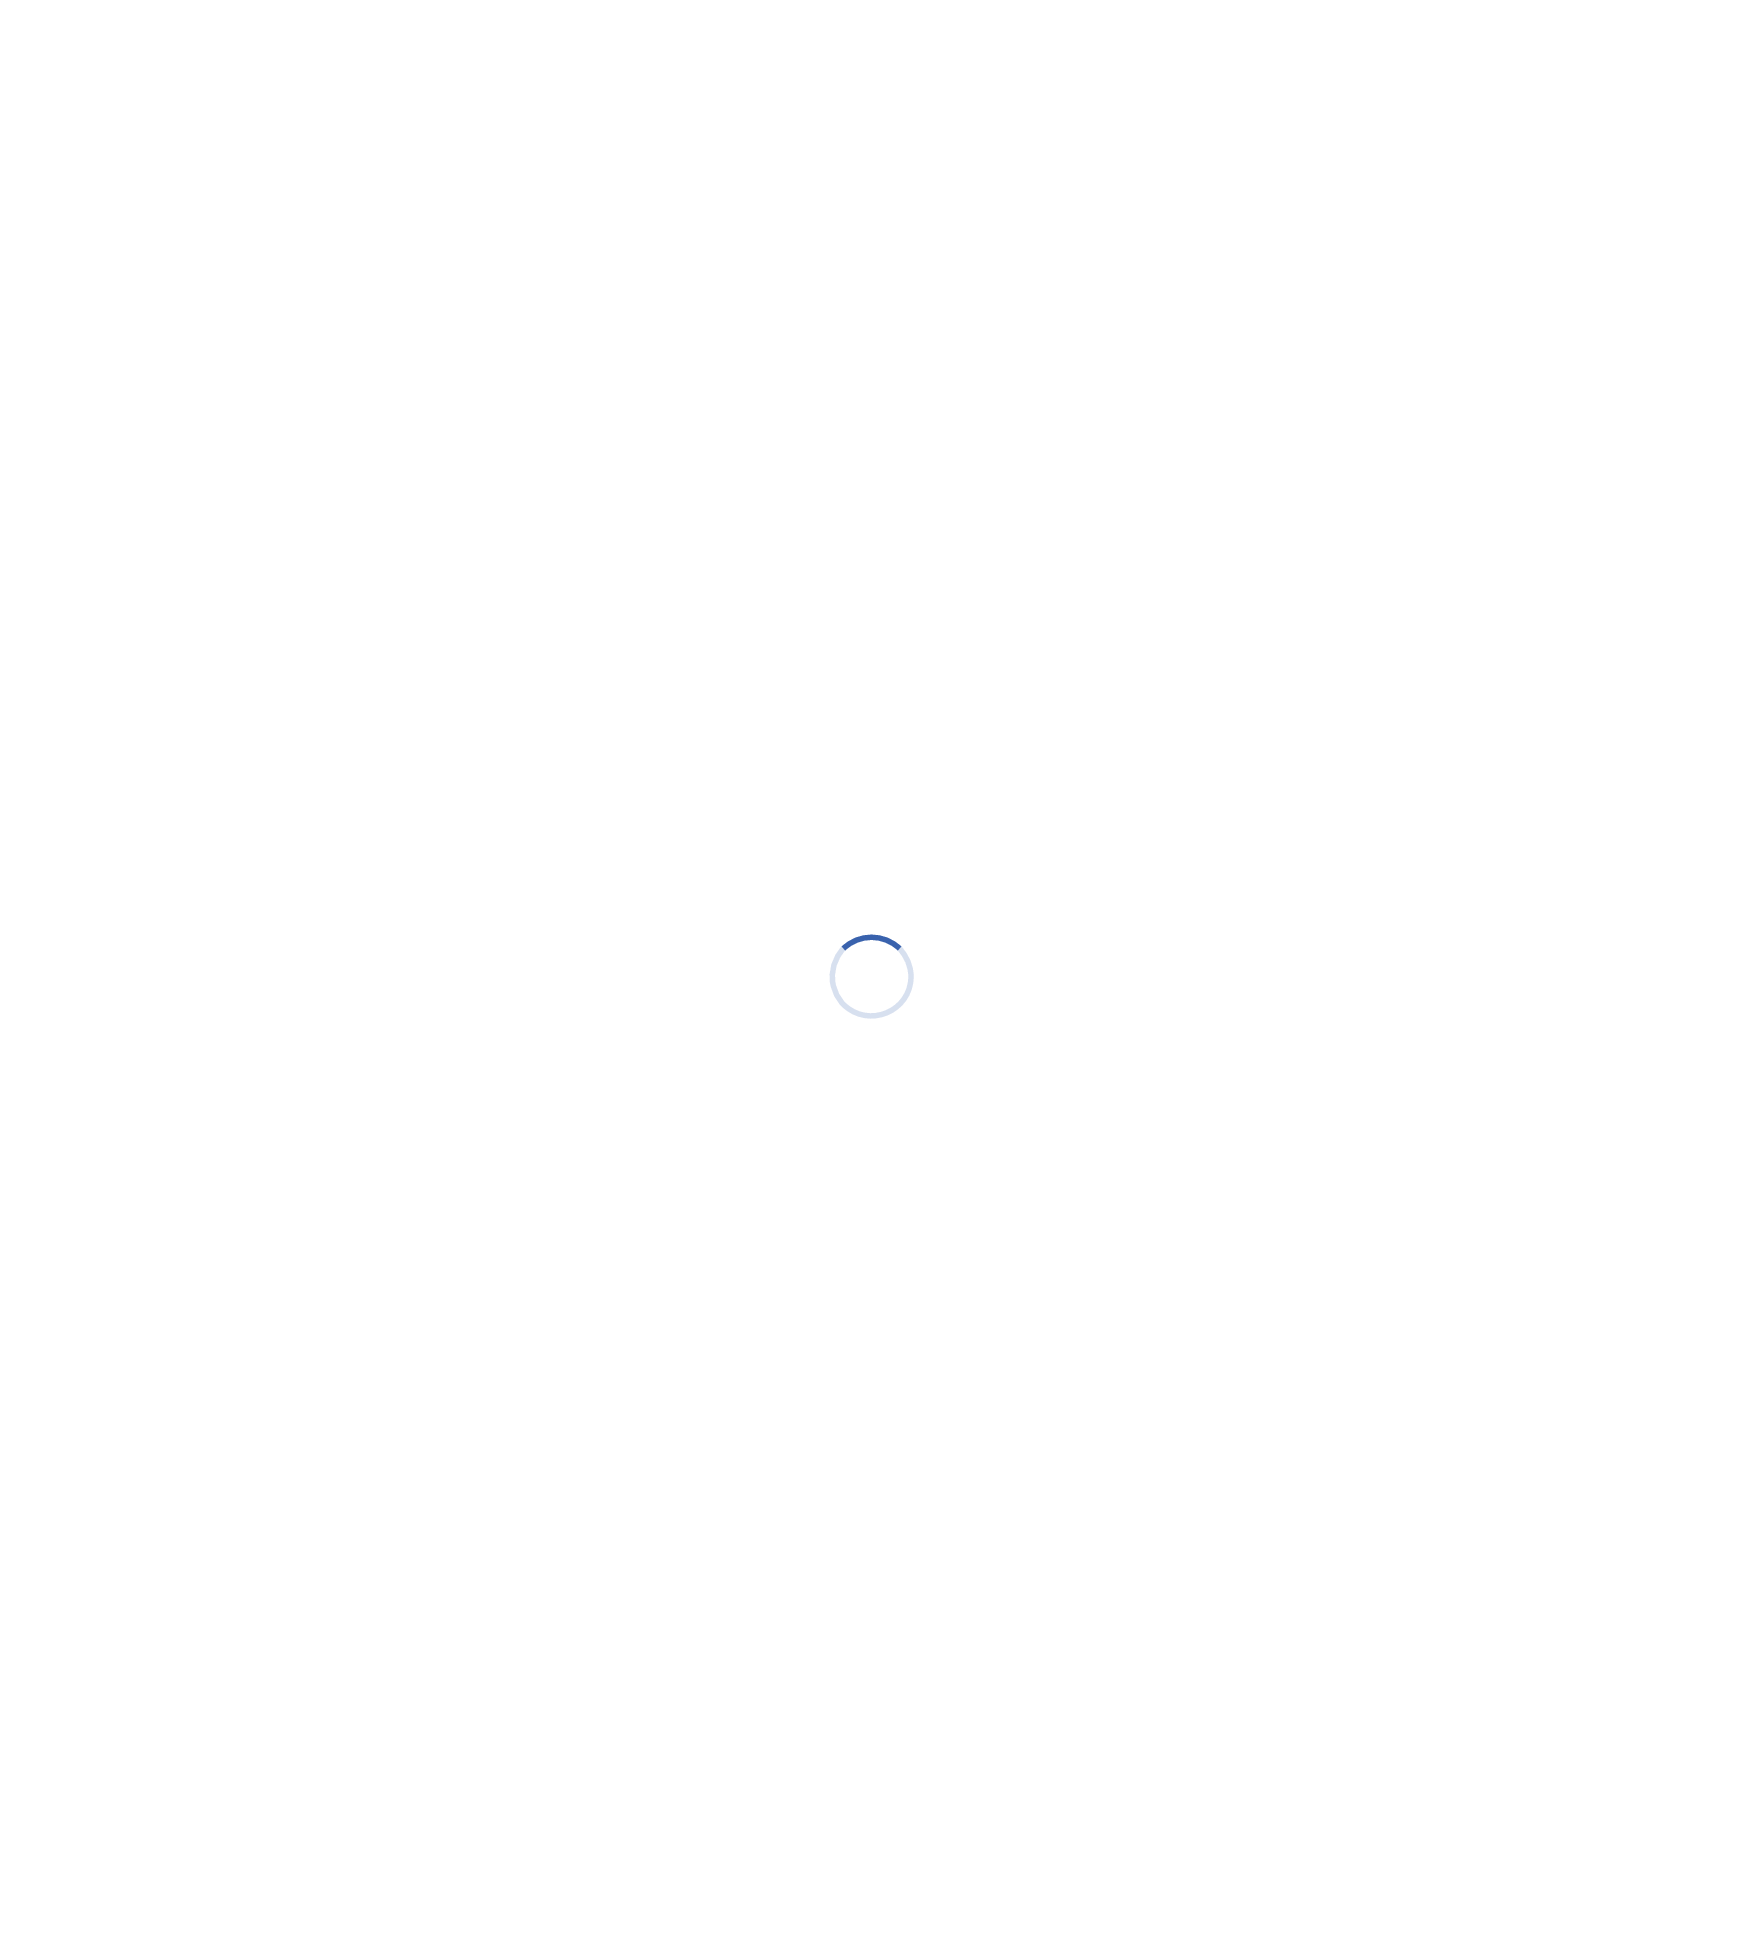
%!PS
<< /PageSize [1741 1952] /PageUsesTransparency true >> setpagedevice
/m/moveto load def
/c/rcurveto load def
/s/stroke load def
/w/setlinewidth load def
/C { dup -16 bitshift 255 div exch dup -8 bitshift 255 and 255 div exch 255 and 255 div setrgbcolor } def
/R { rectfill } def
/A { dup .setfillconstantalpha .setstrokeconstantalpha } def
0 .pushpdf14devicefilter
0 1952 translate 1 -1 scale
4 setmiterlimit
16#FFFFFF C
0 0 1741 1952 R
16#3962AD C
5.2 w
843.5 948.5 m 15.5 -15 40.5 -15 56 0 c s
0.2 A
899.5 948.5 m 7 7.5 11.5 17.5 11.5 28 c 0 35 -42.5 52.5 -67.5 28 c -5.5 -5.5 -9 -12.5 -10.5 -20.5 c -2.5 -12.5 1.5 -26 10.5 -35.5 c s
.poppdf14devicefilter showpage
